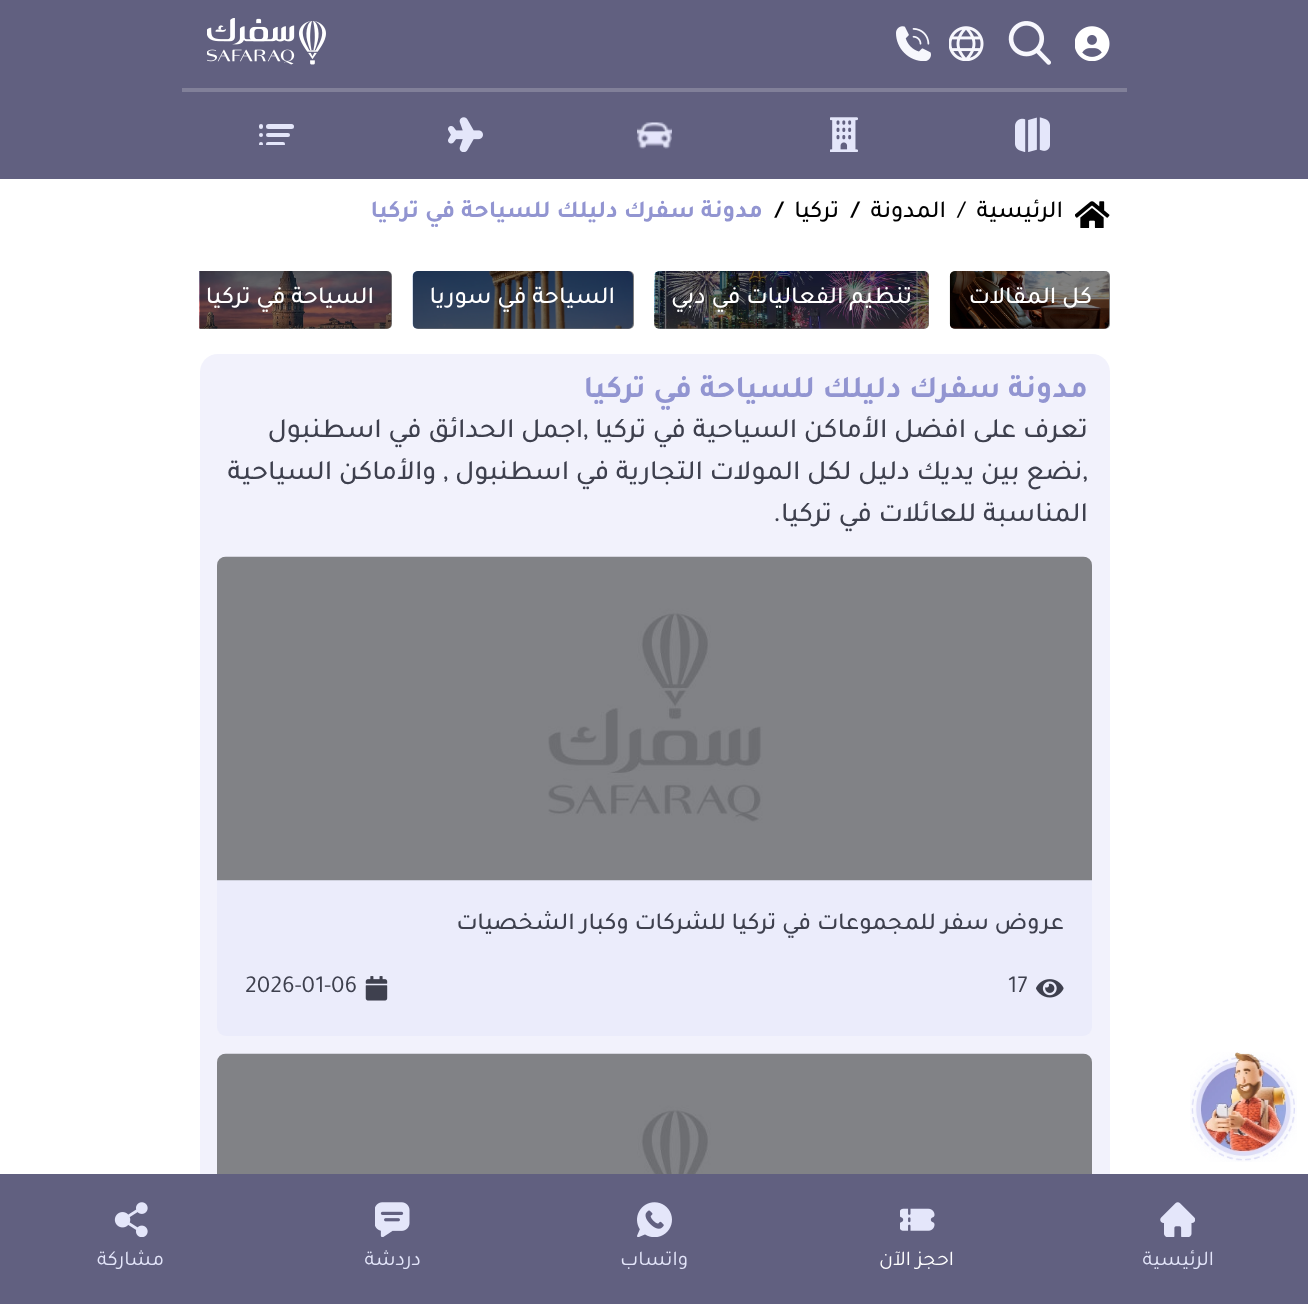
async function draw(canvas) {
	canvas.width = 1308;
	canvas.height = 1304;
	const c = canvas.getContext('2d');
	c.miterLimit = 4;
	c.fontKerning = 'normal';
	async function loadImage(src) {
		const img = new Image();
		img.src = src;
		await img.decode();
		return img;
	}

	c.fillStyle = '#fff';
	c.fillRect(0, 0, 1308, 1304);
	c.fillStyle = '#616080';
	c.fillRect(0, 0, 1308, 179);
	c.fillStyle = '#818099';
	c.fillRect(182, 88, 945, 4);
	c.drawImage(await loadImage('img1.png'), 1075, 26, 35, 35);
	c.drawImage(await loadImage('img2.png'), 1008, 21, 43, 44);
	c.drawImage(await loadImage('img3.png'), 949, 26, 35, 35);
	c.drawImage(await loadImage('img4.png'), 896, 26, 35, 35);
	c.drawImage(await loadImage('img5.png'), 207, 18, 119, 47);
	c.drawImage(await loadImage('img6.png'), 1015, 117, 35, 35);
	c.drawImage(await loadImage('img7.png'), 830, 117, 28, 35);
	c.drawImage(await loadImage('img8.png'), 637, 122, 35, 27);
	c.drawImage(await loadImage('img9.png'), 448, 117, 35, 35);
	c.fillStyle = '#e4e6fa';
	c.beginPath();
	c.roundRect(266, 124, 28, 5, 2.5);
	c.fill();
	c.beginPath();
	c.roundRect(259, 124, 4, 5, 2);
	c.fill();
	c.beginPath();
	c.roundRect(266, 133, 24, 4, 2);
	c.fill();
	c.beginPath();
	c.arc(261, 135, 2, 0, 2 * Math.PI);
	c.fill();
	c.save();
	c.beginPath();
	c.rect(259, 124, 35, 21);
	c.clip();
	c.beginPath();
	c.roundRect(266, 142, 19, 4, 2);
	c.fill();
	c.beginPath();
	c.arc(261, 144, 2, 0, 2 * Math.PI);
	c.fill();
	c.restore();
	c.drawImage(await loadImage('img10.png'), 1075, 201, 35, 27);
	c.direction = 'rtl';
	c.font = '500 24.5px Tajawal';
	c.fillStyle = '#000';
	c.fillText('الرئيسية  /', 1063, 217);
	c.fillText('المدونة', 946, 217);
	c.direction = 'ltr';
	c.font = 'bold 24.5px Tajawal';
	c.fillText('/', 851, 217);
	c.direction = 'rtl';
	c.font = '500 24.5px Tajawal';
	c.fillText('تركيا', 839, 217);
	c.direction = 'ltr';
	c.font = 'bold 24.5px Tajawal';
	c.fillText('/', 775, 217);
	c.direction = 'rtl';
	c.fillStyle = '#9295d1';
	c.fillText('مدونة سفرك دليلك للسياحة في تركيا', 763, 217);
	c.drawImage(await loadImage('img11.png'), 949, 271, 160, 58);
	c.fillStyle = '#00000080';
	c.beginPath();
	c.roundRect(950, 271, 160, 58, 5);
	c.fill();
	c.font = '500 24.5px Tajawal';
	c.fillStyle = '#fff';
	c.fillText('كل المقالات', 1092, 303);
	c.drawImage(await loadImage('img12.png'), 654, 271, 275, 58);
	c.fillStyle = '#00000080';
	c.beginPath();
	c.roundRect(655, 271, 274, 58, 5);
	c.fill();
	c.fillStyle = '#fff';
	c.fillText('تنظيم الفعاليات في دبي', 912, 303);
	c.drawImage(await loadImage('img13.png'), 412, 271, 221, 58);
	c.fillStyle = '#00000080';
	c.beginPath();
	c.roundRect(413, 271, 221, 58, 5);
	c.fill();
	c.fillStyle = '#fff';
	c.fillText('السياحة في سوريا', 615, 303);
	c.drawImage(await loadImage('img14.png'), 199, 271, 193, 58);
	c.fillStyle = '#00000080';
	c.beginPath();
	c.roundRect(200, 271, 192, 58, [0, 5, 5, 0]);
	c.fill();
	c.fillStyle = '#fff';
	c.fillText('السياحة في تركيا', 374, 303);
	c.fillStyle = '#f2f2fc';
	c.beginPath();
	c.roundRect(200, 354, 910, 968, 18);
	c.fill();
	c.font = 'bold 31.5px Tajawal';
	c.fillStyle = '#9295d1';
	c.fillText('مدونة سفرك دليلك للسياحة في تركيا', 1088, 397);
	c.font = '500 28px Tajawal';
	c.fillStyle = '#3e404e';
	for (const [text, x, y] of [
		['تعرف على افضل الأماكن السياحية في تركيا ,اجمل الحدائق في اسطنبول', 1088, 437],
		[',نضع بين يديك دليل لكل المولات التجارية في اسطنبول , والأماكن السياحية', 1088, 479],
		['المناسبة للعائلات في تركيا.', 1088, 521],
	]) {
		c.fillText(text, x, y);
	}
	c.fillStyle = '#ebecfb';
	c.beginPath();
	c.roundRect(217, 557, 875, 479, 9);
	c.fill();
	c.drawImage(await loadImage('img15.png'), 217, 556, 875, 325);
	c.font = '500 24.5px Tajawal';
	c.fillStyle = '#3e404e';
	c.fillText('عروض سفر للمجموعات في تركيا للشركات وكبار الشخصيات', 1064, 929);
	c.drawImage(await loadImage('img16.png'), 1036, 979, 28, 19);
	c.direction = 'ltr';
	c.font = '24.5px Tajawal';
	c.fillText('17', 1008, 992);
	c.drawImage(await loadImage('img17.png'), 365, 976, 23, 25);
	c.fillText('2026-01-06', 245, 992);
	c.drawImage(await loadImage('img18.png'), 217, 1053, 875, 121);
	c.drawImage(await loadImage('img19.png'), 1190, 1052, 107, 110);
	c.fillStyle = '#616080';
	c.fillRect(0, 1174, 1308, 130);
	c.drawImage(await loadImage('img20.png'), 1160, 1202, 35, 35);
	c.direction = 'rtl';
	c.font = '21px Tajawal';
	c.fillStyle = '#e4e6fa';
	c.fillText('الرئيسية', 1214, 1265);
	c.drawImage(await loadImage('img21.png'), 900, 1208, 35, 23);
	c.fillStyle = '#fff';
	c.fillText('احجز الآن', 954, 1265);
	c.drawImage(await loadImage('img22.png'), 637, 1202, 35, 35);
	c.fillStyle = '#e4e6fa';
	c.fillText('واتساب', 688, 1265);
	c.drawImage(await loadImage('img23.png'), 375, 1202, 35, 35);
	c.fillText('دردشة', 421, 1265);
	c.drawImage(await loadImage('img24.png'), 114, 1202, 34, 35);
	c.fillText('مشاركة', 164, 1265);
}

draw(document.querySelector('canvas'));
